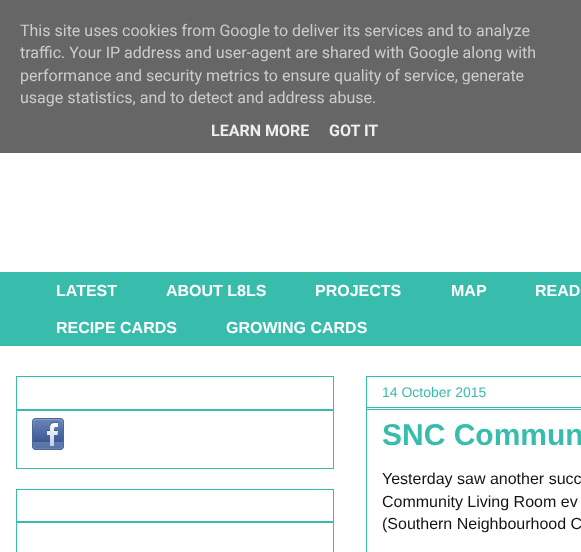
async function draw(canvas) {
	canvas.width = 581;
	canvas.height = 552;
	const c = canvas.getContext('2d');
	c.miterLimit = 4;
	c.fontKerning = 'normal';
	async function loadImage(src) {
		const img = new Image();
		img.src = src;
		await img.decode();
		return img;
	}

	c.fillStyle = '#fff';
	c.fillRect(0, 0, 581, 552);
	c.fillStyle = '#666';
	c.fillRect(0, 0, 581, 153);
	c.font = '16px Roboto';
	c.fillStyle = '#ccc';
	for (const [text, x, y] of [
		['This site uses cookies from Google to deliver its services and to analyze', 20, 36],
		['traffic. Your IP address and user-agent are shared with Google along with', 20, 58],
		['performance and security metrics to ensure quality of service, generate', 20, 81],
		['usage statistics, and to detect and address abuse.', 20, 103],
	]) {
		c.fillText(text, x, y);
	}
	c.font = 'bold 16px Roboto';
	c.fillStyle = '#eee';
	c.fillText('LEARN MORE', 211, 136);
	c.fillText('GOT IT', 329, 136);
	c.fillStyle = '#38bdad';
	c.fillRect(0, 272, 581, 74);
	c.font = 'bold 16px Liberation Sans';
	c.fillStyle = '#fff';
	for (const [text, x, y] of [
		['LATEST', 56, 296],
		['ABOUT L8LS', 166, 296],
		['PROJECTS', 315, 296],
		['MAP', 451, 296],
		['READ', 535, 296],
		['RECIPE CARDS', 56, 333],
		['GROWING CARDS', 226, 333],
	]) {
		c.fillText(text, x, y);
	}
	c.strokeStyle = '#38bdad';
	c.strokeRect(16.5, 376.5, 317, 92);
	c.fillStyle = '#38bdad';
	c.fillRect(17, 409, 316, 2);
	c.drawImage(await loadImage('img1.png'), 32, 418, 32, 32);
	c.strokeRect(16.5, 489.5, 317, 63);
	c.fillRect(17, 521, 316, 2);
	c.strokeRect(366.5, 376.5, 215, 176);
	c.fillRect(367, 407, 214, 1);
	c.font = '14px Liberation Sans';
	c.fillText('14 October 2015', 382, 397);
	c.fillRect(367, 409, 214, 1);
	c.font = 'bold 30px Liberation Sans';
	c.fillText('SNC Commun', 382, 445);
	c.font = '16px Liberation Sans';
	c.fillStyle = '#141414';
	for (const [text, x, y] of [
		['Yesterday saw another succ', 382, 484],
		['Community Living Room ev', 382, 507],
		['(Southern Neighbourhood C', 382, 529],
	]) {
		c.fillText(text, x, y);
	}
}

draw(document.querySelector('canvas'));
